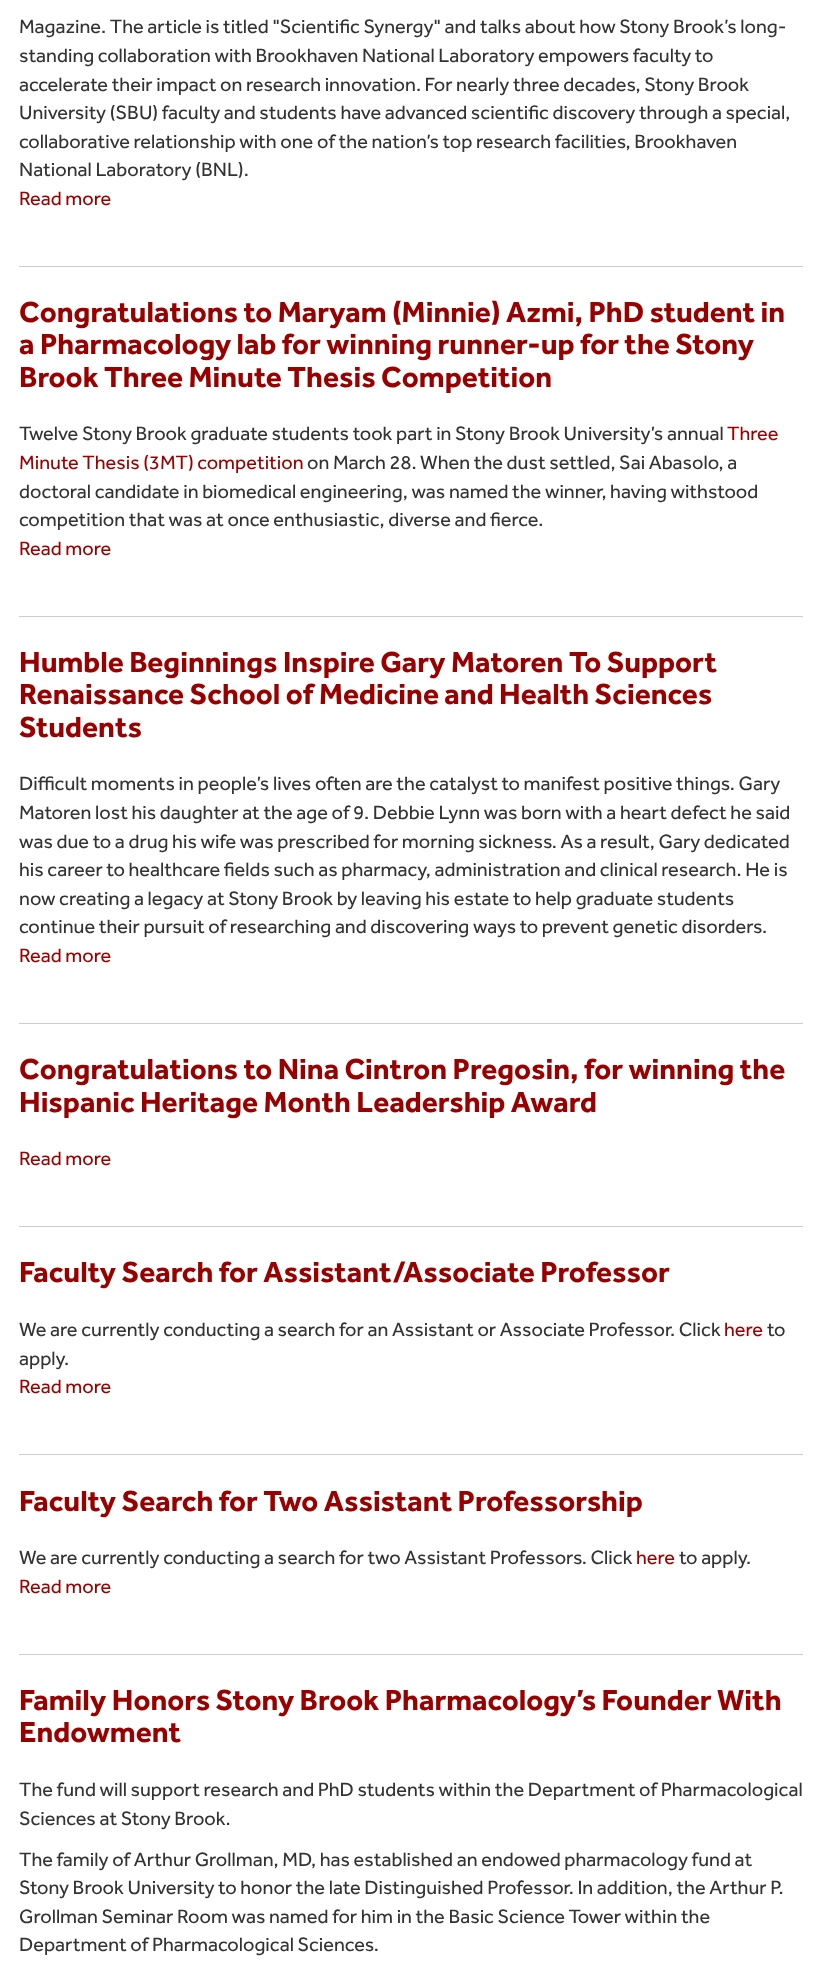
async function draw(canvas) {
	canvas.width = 821;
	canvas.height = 1966;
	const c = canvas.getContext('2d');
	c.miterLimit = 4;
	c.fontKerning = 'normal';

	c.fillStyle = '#fff';
	c.fillRect(0, 0, 821, 1966);
	c.fillStyle = '#ccc';
	c.fillRect(19, 266, 784, 1);
	c.font = '20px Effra';
	c.fillStyle = '#333';
	for (const [text, x, y] of [
		['Magazine. The article is titled "Scientific Synergy" and talks about how Stony Brook’s long-', 19, 33],
		['standing collaboration with Brookhaven National Laboratory empowers faculty to', 19, 62],
		['accelerate their impact on research innovation. For nearly three decades, Stony Brook', 19, 91],
		['University (SBU) faculty and students have advanced scientific discovery through a special,', 19, 119],
		['collaborative relationship with one of the nation’s top research facilities, Brookhaven', 19, 148],
		['National Laboratory (BNL).', 19, 176],
	]) {
		c.fillText(text, x, y);
	}
	c.fillStyle = '#900';
	c.fillText('Read more', 19, 205);
	c.fillStyle = '#ccc';
	c.fillRect(19, 616, 784, 1);
	c.font = 'bold 30px Effra';
	c.fillStyle = '#900';
	for (const [text, x, y] of [
		['Congratulations to Maryam (Minnie) Azmi, PhD student in', 19, 322],
		['a Pharmacology lab for winning runner-up for the Stony', 19, 354],
		['Brook Three Minute Thesis Competition', 19, 387],
	]) {
		c.fillText(text, x, y);
	}
	c.font = '20px Effra';
	c.fillStyle = '#333';
	c.fillText('Twelve Stony Brook graduate students took part in Stony Brook University’s annual', 19, 440);
	c.fillStyle = '#900';
	c.fillText('Three', 727, 440);
	c.fillText('Minute Thesis (3MT) competition', 19, 469);
	c.fillStyle = '#333';
	for (const [text, x, y] of [
		['on March 28. When the dust settled, Sai Abasolo, a', 307, 469],
		['doctoral candidate in biomedical engineering, was named the winner, having withstood', 19, 498],
		['competition that was at once enthusiastic, diverse and fierce.', 19, 526],
	]) {
		c.fillText(text, x, y);
	}
	c.fillStyle = '#900';
	c.fillText('Read more', 19, 555);
	c.fillStyle = '#ccc';
	c.fillRect(19, 1023, 784, 1);
	c.font = 'bold 30px Effra';
	c.fillStyle = '#900';
	for (const [text, x, y] of [
		['Humble Beginnings Inspire Gary Matoren To Support', 19, 672],
		['Renaissance School of Medicine and Health Sciences', 19, 704],
		['Students', 19, 737],
	]) {
		c.fillText(text, x, y);
	}
	c.font = '20px Effra';
	c.fillStyle = '#333';
	for (const [text, x, y] of [
		['Difficult moments in people’s lives often are the catalyst to manifest positive things. Gary', 19, 790],
		['Matoren lost his daughter at the age of 9. Debbie Lynn was born with a heart defect he said', 19, 819],
		['was due to a drug his wife was prescribed for morning sickness. As a result, Gary dedicated', 19, 848],
		['his career to healthcare fields such as pharmacy, administration and clinical research. He is', 19, 876],
		['now creating a legacy at Stony Brook by leaving his estate to help graduate students', 19, 905],
		['continue their pursuit of researching and discovering ways to prevent genetic disorders.', 19, 933],
	]) {
		c.fillText(text, x, y);
	}
	c.fillStyle = '#900';
	c.fillText('Read more', 19, 962);
	c.fillStyle = '#ccc';
	c.fillRect(19, 1226, 784, 1);
	c.font = 'bold 30px Effra';
	c.fillStyle = '#900';
	c.fillText('Congratulations to Nina Cintron Pregosin, for winning the', 19, 1079);
	c.fillText('Hispanic Heritage Month Leadership Award', 19, 1112);
	c.font = '20px Effra';
	c.fillText('Read more', 19, 1165);
	c.fillStyle = '#ccc';
	c.fillRect(19, 1454, 784, 1);
	c.font = 'bold 30px Effra';
	c.fillStyle = '#900';
	c.fillText('Faculty Search for Assistant/Associate Professor', 19, 1282);
	c.font = '20px Effra';
	c.fillStyle = '#333';
	c.fillText('We are currently conducting a search for an Assistant or Associate Professor. Click', 19, 1336);
	c.fillStyle = '#900';
	c.fillText('here', 724, 1336);
	c.fillStyle = '#333';
	c.fillText('to', 767, 1336);
	c.fillText('apply.', 19, 1365);
	c.fillStyle = '#900';
	c.fillText('Read more', 19, 1393);
	c.fillStyle = '#ccc';
	c.fillRect(19, 1654, 784, 1);
	c.font = 'bold 30px Effra';
	c.fillStyle = '#900';
	c.fillText('Faculty Search for Two Assistant Professorship', 19, 1511);
	c.font = '20px Effra';
	c.fillStyle = '#333';
	c.fillText('We are currently conducting a search for two Assistant Professors. Click', 19, 1564);
	c.fillStyle = '#900';
	c.fillText('here', 636, 1564);
	c.fillStyle = '#333';
	c.fillText('to apply.', 679, 1564);
	c.fillStyle = '#900';
	c.fillText('Read more', 19, 1593);
	c.font = 'bold 30px Effra';
	c.fillText('Family Honors Stony Brook Pharmacology’s Founder With', 19, 1710);
	c.fillText('Endowment', 19, 1742);
	c.font = '20px Effra';
	c.fillStyle = '#333';
	for (const [text, x, y] of [
		['The fund will support research and PhD students within the Department of Pharmacological', 19, 1796],
		['Sciences at Stony Brook.', 19, 1825],
		['The family of Arthur Grollman, MD, has established an endowed pharmacology fund at', 19, 1866],
		['Stony Brook University to honor the late Distinguished Professor. In addition, the Arthur P.', 19, 1894],
		['Grollman Seminar Room was named for him in the Basic Science Tower within the', 19, 1923],
		['Department of Pharmacological Sciences.', 19, 1951],
	]) {
		c.fillText(text, x, y);
	}
}

draw(document.querySelector('canvas'));
